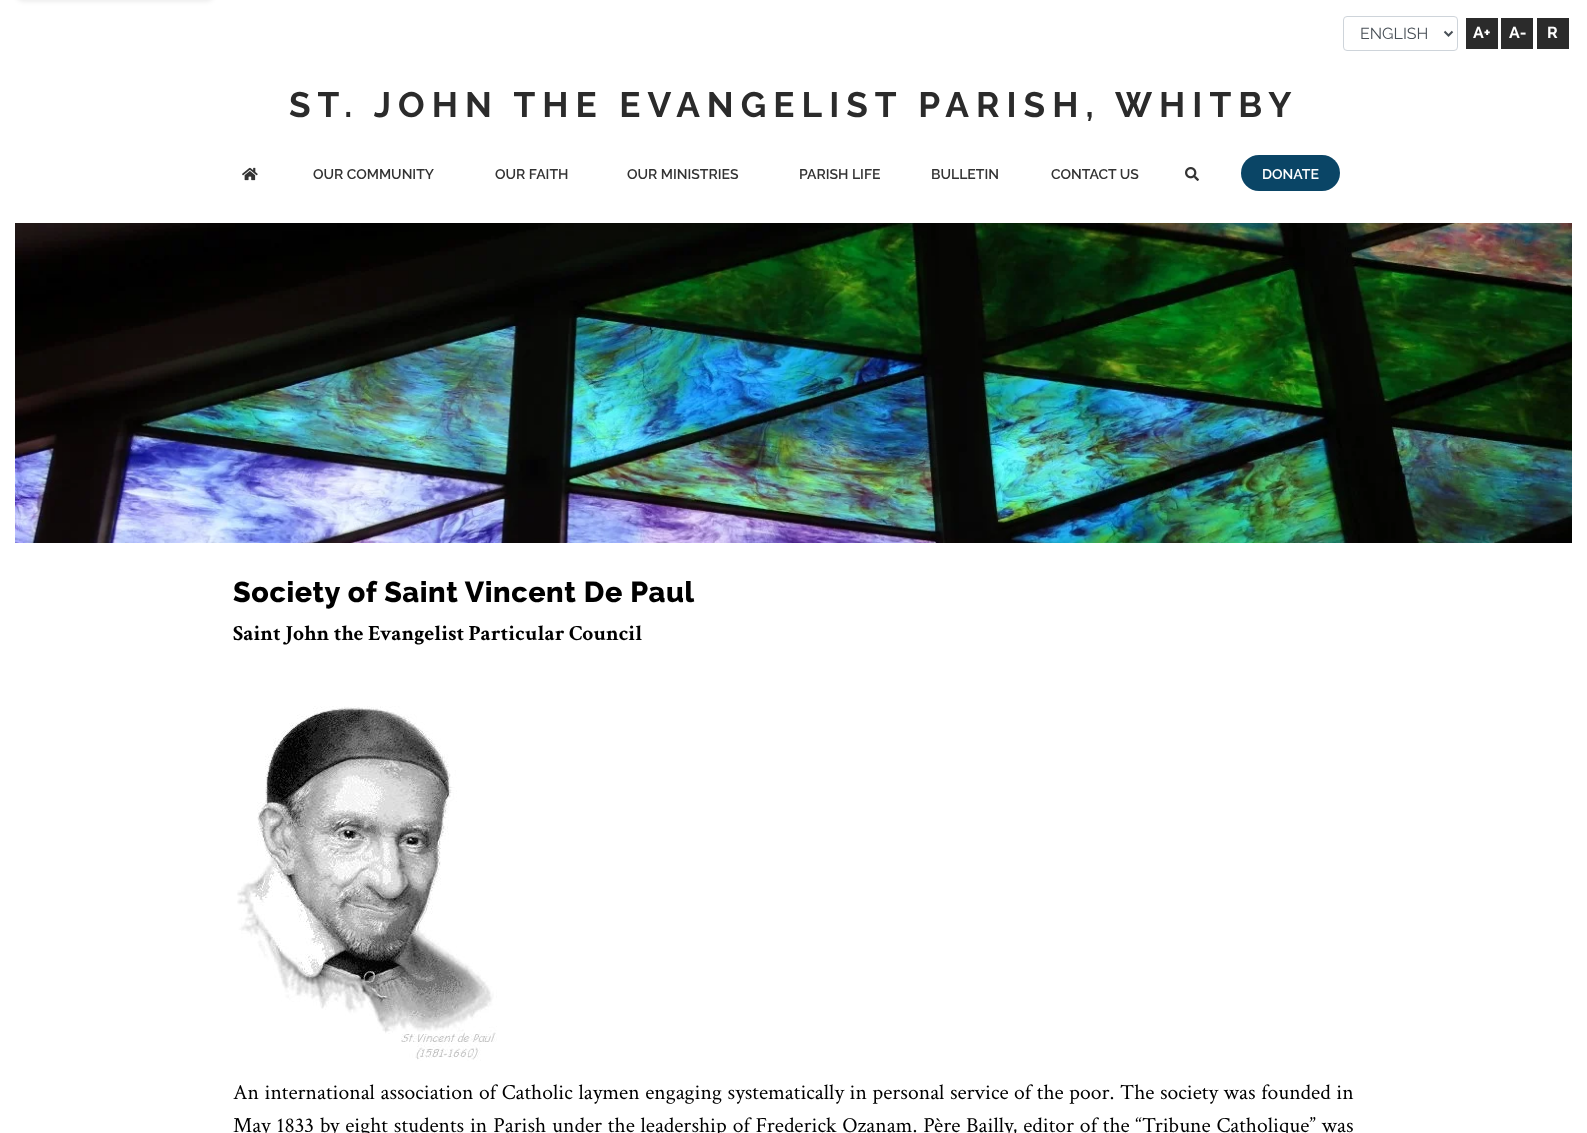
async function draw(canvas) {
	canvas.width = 1587;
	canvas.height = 1133;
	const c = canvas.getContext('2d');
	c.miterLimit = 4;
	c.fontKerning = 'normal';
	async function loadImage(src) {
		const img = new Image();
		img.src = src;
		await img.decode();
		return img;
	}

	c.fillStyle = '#fff';
	c.fillRect(0, 0, 1587, 1133);
	c.fillStyle = '#00000012';
	c.filter = 'blur(2px)';
	c.beginPath();
	c.roundRect(15, -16, 200, 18, 10);
	c.fill();
	c.filter = 'none';
	c.beginPath();
	c.roundRect(1343.5, 16.5, 114, 34, 3.5);
	c.strokeStyle = '#ced4da';
	c.stroke();
	c.beginPath();
	c.moveTo(1444.5, 31.5);
	c.lineTo(1448.5, 35.5);
	c.lineTo(1452.5, 31.5);
	c.strokeStyle = '#495057';
	c.lineWidth = 2;
	c.stroke();
	c.font = '16px Raleway';
	c.fillStyle = '#495057';
	c.fillText('ENGLISH', 1360, 39);
	c.fillStyle = '#2b2b2b';
	c.fillRect(1466, 18, 32, 31);
	c.font = 'bold 16px Raleway';
	c.fillStyle = '#fff';
	c.fillText('A+', 1473, 38);
	c.fillStyle = '#2b2b2b';
	c.fillRect(1501, 18, 32, 31);
	c.fillStyle = '#fff';
	c.fillText('A-', 1509, 38);
	c.fillStyle = '#2b2b2b';
	c.fillRect(1537, 18, 32, 31);
	c.fillStyle = '#fff';
	c.fillText('R', 1547, 38);
	c.letterSpacing = '7.05px';
	c.font = 'bold 35.2px Raleway';
	c.fillStyle = '#2b2b2b';
	c.fillText('ST. JOHN THE EVANGELIST PARISH, WHITBY', 289, 117);
	c.drawImage(await loadImage('img1.png'), 242, 167, 16, 14);
	c.letterSpacing = '0px';
	c.font = '600 14px Raleway';
	c.fillStyle = '#333';
	for (const [text, x, y] of [
		['OUR COMMUNITY', 313, 179],
		['OUR FAITH', 495, 179],
		['OUR MINISTRIES', 627, 179],
		['PARISH LIFE', 799, 179],
		['BULLETIN', 931, 179],
		['CONTACT US', 1051, 179],
	]) {
		c.fillText(text, x, y);
	}
	c.drawImage(await loadImage('img2.png'), 1185, 167, 14, 14);
	c.fillStyle = '#0a4566';
	c.beginPath();
	c.roundRect(1241, 155, 99, 36, 18);
	c.fill();
	c.fillStyle = '#fff';
	c.fillText('DONATE', 1262, 179);
	c.drawImage(await loadImage('img3.png'), 15, 223, 1557, 320);
	c.letterSpacing = '0.6px';
	c.font = '800 28.75px Raleway';
	c.fillStyle = '#000';
	c.fillText('Society of Saint Vincent De Paul', 233, 602);
	c.letterSpacing = '0px';
	c.font = 'bold 21.6px Crimson Text';
	c.fillText('Saint John the Evangelist Particular Council', 233, 640);
	c.drawImage(await loadImage('img4.png'), 237, 706, 260, 355);
	c.wordSpacing = '0.75px';
	c.font = '21.6px Crimson Text';
	c.fillText('An international association of Catholic laymen engaging systematically in personal service of the poor. The society was founded in', 233, 1099);
	c.wordSpacing = '1px';
	c.fillText('May 1833 by eight students in Parish under the leadership of Frederick Ozanam. Père Bailly, editor of the “Tribune Catholique” was', 233, 1132);
}

draw(document.querySelector('canvas'));
